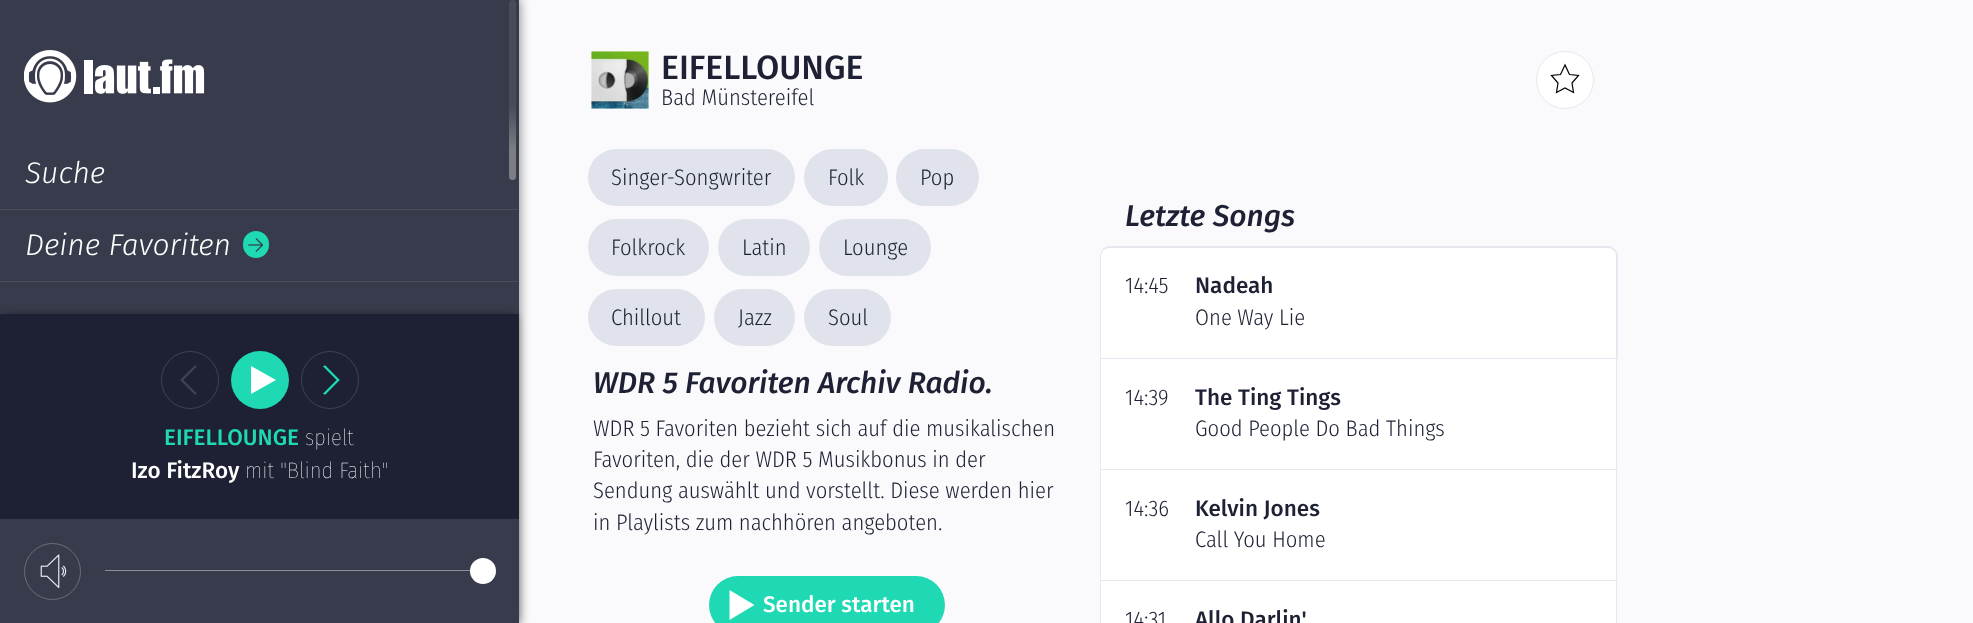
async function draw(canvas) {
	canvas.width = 1973;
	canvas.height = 623;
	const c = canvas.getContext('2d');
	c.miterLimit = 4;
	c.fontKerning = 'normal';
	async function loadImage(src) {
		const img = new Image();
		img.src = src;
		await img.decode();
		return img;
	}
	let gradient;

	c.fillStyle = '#fafafc';
	c.fillRect(0, 0, 1973, 623);
	c.fillStyle = '#00000080';
	c.filter = 'blur(6px)';
	c.beginPath();
	c.rect(-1, -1, 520, 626);
	c.fill();
	c.filter = 'none';
	c.fillStyle = '#373b4b';
	c.fillRect(0, 0, 519, 314);
	c.fillStyle = '#7c7e84';
	c.beginPath();
	c.roundRect(509, 0, 7, 180, 3.5);
	c.fill();
	gradient = c.createLinearGradient(259, 150, 259, 0);
	gradient.addColorStop(0, '#373b4b00');
	gradient.addColorStop(0.29, '#373b4bbf');
	c.fillStyle = gradient;
	c.fillRect(509, 0, 7, 148);
	c.drawImage(await loadImage('img1.png'), 24, 50, 181, 53);
	c.fillStyle = '#4b4f5d';
	c.fillRect(0, 209, 518, 1);
	c.font = 'italic 300 30px Fira Sans';
	c.fillStyle = '#fff';
	c.fillText('Suche', 25, 183);
	c.fillStyle = '#4b4f5d';
	c.fillRect(0, 281, 518, 1);
	c.fillStyle = '#fff';
	c.fillText('Deine Favoriten', 25, 255);
	c.fillStyle = '#1ed9b4';
	c.beginPath();
	c.roundRect(243, 231, 26, 27, 13);
	c.fill();
	c.drawImage(await loadImage('img2.png'), 248, 238, 15, 14);
	c.fillStyle = '#00000080';
	c.filter = 'blur(5px)';
	c.beginPath();
	c.rect(3, 316, 513, 305);
	c.fill();
	c.filter = 'none';
	c.fillStyle = '#1d2133';
	c.fillRect(0, 314, 519, 205);
	c.beginPath();
	c.arc(190, 380, 28.5, 0, 2 * Math.PI);
	c.strokeStyle = '#3f4252';
	c.stroke();
	c.beginPath();
	c.moveTo(182.5, 380);
	c.lineTo(196, 393.5);
	c.lineTo(195, 394);
	c.lineTo(181, 380);
	c.lineTo(195, 366);
	c.lineTo(196, 366.5);
	c.closePath();
	c.lineWidth = 1.2;
	c.stroke();
	c.fillStyle = '#1ed9b4';
	c.beginPath();
	c.arc(260, 380, 29, 0, 2 * Math.PI);
	c.fill();
	c.fillStyle = '#fff';
	c.beginPath();
	c.moveTo(251, 394);
	c.lineTo(251, 366);
	c.lineTo(276, 380);
	c.closePath();
	c.fill();
	c.beginPath();
	c.arc(330, 380, 28.5, 0, 2 * Math.PI);
	c.lineWidth = 1;
	c.stroke();
	c.beginPath();
	c.moveTo(337.5, 380);
	c.lineTo(324, 366.5);
	c.lineTo(325, 366);
	c.lineTo(339, 380);
	c.lineTo(325, 394);
	c.lineTo(324, 393.5);
	c.closePath();
	c.strokeStyle = '#1ed9b4';
	c.lineWidth = 1.2;
	c.stroke();
	c.font = '500 22.5px Fira Sans';
	c.fillStyle = '#1ed9b4';
	c.fillText('EIFELLOUNGE', 164, 445);
	c.font = '200 22.5px Fira Sans Condensed';
	c.fillStyle = '#fff';
	c.fillText('spielt', 305, 445);
	c.font = '500 22.5px Fira Sans';
	c.fillText('Izo FitzRoy', 131, 478);
	c.font = '200 22.5px Fira Sans Condensed';
	c.fillText('mit "Blind Faith"', 245, 478);
	c.fillStyle = '#373b4b';
	c.fillRect(0, 519, 519, 104);
	c.beginPath();
	c.arc(52.5, 571.5, 28, 0, 2 * Math.PI);
	c.strokeStyle = '#6b6e7a';
	c.lineWidth = 1;
	c.stroke();
	c.drawImage(await loadImage('img3.png'), 40, 554, 27, 35);
	c.fillStyle = '#8b8d97';
	c.fillRect(105, 570, 366, 1);
	c.fillStyle = '#fff';
	c.beginPath();
	c.arc(483, 571, 13, 0, 2 * Math.PI);
	c.fill();
	c.drawImage(await loadImage('img4.png'), 591, 51, 58, 58);
	c.font = '500 33.75px Fira Sans';
	c.fillStyle = '#1d2133';
	c.fillText('EIFELLOUNGE', 661, 79);
	c.font = '300 22.5px Fira Sans Condensed';
	c.fillText('Bad Münstereifel', 661, 105);
	c.fillStyle = '#fff';
	c.beginPath();
	c.arc(1565, 80, 28.5, 0, 2 * Math.PI);
	c.fill();
	c.strokeStyle = '#e5e8f1';
	c.stroke();
	c.beginPath();
	c.moveTo(1565, 65);
	c.lineTo(1560.5, 74.5);
	c.lineTo(1551.5, 75.5);
	c.lineTo(1558, 83);
	c.lineTo(1556.5, 92.5);
	c.lineTo(1565, 88);
	c.lineTo(1573.5, 92.5);
	c.lineTo(1572, 83);
	c.lineTo(1578.5, 75.5);
	c.lineTo(1569.5, 74.5);
	c.closePath();
	c.strokeStyle = '#000';
	c.lineWidth = 1.2;
	c.stroke();
	c.fillStyle = '#e1e3ec';
	c.beginPath();
	c.roundRect(588, 149, 207, 57, 28.5);
	c.fill();
	c.fillStyle = '#1d2133';
	c.fillText('Singer-Songwriter', 611, 185);
	c.fillStyle = '#e1e3ec';
	c.beginPath();
	c.roundRect(804, 149, 84, 57, 28.5);
	c.fill();
	c.fillStyle = '#1d2133';
	c.fillText('Folk', 828, 185);
	c.fillStyle = '#e1e3ec';
	c.beginPath();
	c.roundRect(896, 149, 83, 57, 28.5);
	c.fill();
	c.fillStyle = '#1d2133';
	c.fillText('Pop', 920, 185);
	c.fillStyle = '#e1e3ec';
	c.beginPath();
	c.roundRect(588, 219, 121, 57, 28.5);
	c.fill();
	c.fillStyle = '#1d2133';
	c.fillText('Folkrock', 611, 255);
	c.fillStyle = '#e1e3ec';
	c.beginPath();
	c.roundRect(718, 219, 92, 57, 28.5);
	c.fill();
	c.fillStyle = '#1d2133';
	c.fillText('Latin', 742, 255);
	c.fillStyle = '#e1e3ec';
	c.beginPath();
	c.roundRect(819, 219, 112, 57, 28.5);
	c.fill();
	c.fillStyle = '#1d2133';
	c.fillText('Lounge', 843, 255);
	c.fillStyle = '#e1e3ec';
	c.beginPath();
	c.roundRect(588, 289, 117, 57, 28.5);
	c.fill();
	c.fillStyle = '#1d2133';
	c.fillText('Chillout', 611, 325);
	c.fillStyle = '#e1e3ec';
	c.beginPath();
	c.roundRect(714, 289, 81, 57, 28.5);
	c.fill();
	c.fillStyle = '#1d2133';
	c.fillText('Jazz', 738, 325);
	c.fillStyle = '#e1e3ec';
	c.beginPath();
	c.roundRect(804, 289, 87, 57, 28.5);
	c.fill();
	c.fillStyle = '#1d2133';
	c.fillText('Soul', 828, 325);
	c.font = 'italic 500 30px Fira Sans';
	c.fillText('WDR 5 Favoriten Archiv Radio.', 593, 393);
	c.font = '300 22.5px Fira Sans Condensed';
	for (const [text, x, y] of [
		['WDR 5 Favoriten bezieht sich auf die musikalischen', 593, 436],
		['Favoriten, die der WDR 5 Musikbonus in der', 593, 467],
		['Sendung auswählt und vorstellt. Diese werden hier', 593, 498],
		['in Playlists zum nachhören angeboten.', 593, 530],
	]) {
		c.fillText(text, x, y);
	}
	c.fillStyle = '#1ed9b4';
	c.beginPath();
	c.roundRect(709, 576, 236, 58, 29);
	c.fill();
	c.fillStyle = '#fff';
	c.beginPath();
	c.moveTo(729.5, 620);
	c.lineTo(729.5, 590);
	c.lineTo(754.5, 605);
	c.closePath();
	c.fill();
	c.font = '500 22.5px Fira Sans';
	c.fillText('Sender starten', 763, 612);
	c.font = 'italic 500 30px Fira Sans';
	c.fillStyle = '#1d2133';
	c.fillText('Letzte Songs', 1125, 226);
	c.fillStyle = '#fff';
	c.beginPath();
	c.roundRect(1101, 248, 515, 110, [9, 9, 0, 0]);
	c.fill();
	c.fillStyle = '#e5e8f1';
	c.beginPath();
	c.moveTo(1110, 246);
	c.lineTo(1608, 246);
	c.bezierCurveTo(1613, 246, 1618, 251, 1618, 256);
	c.lineTo(1618, 358);
	c.lineTo(1100, 358);
	c.lineTo(1100, 256);
	c.bezierCurveTo(1100, 251, 1104, 246, 1110, 246);
	c.closePath();
	c.moveTo(1110, 248);
	c.lineTo(1608, 248);
	c.bezierCurveTo(1612, 248, 1616, 251, 1616, 256);
	c.lineTo(1616, 358);
	c.lineTo(1101, 358);
	c.lineTo(1101, 256);
	c.bezierCurveTo(1101, 251, 1105, 248, 1110, 248);
	c.closePath();
	c.fill('evenodd');
	c.font = '300 22.5px Fira Sans Condensed';
	c.fillStyle = '#1d2133';
	c.fillText('14:45', 1125, 293);
	c.font = '500 22.5px Fira Sans';
	c.fillText('Nadeah', 1195, 293);
	c.font = '300 22.5px Fira Sans Condensed';
	c.fillText('One Way Lie', 1195, 325);
	for (const [x, y, w, h, color] of [
		[1101, 359, 515, 110, '#fff'],
		[1100, 358, 518, 1, '#e5e8f1'],
		[1616, 358, 1, 111, '#e5e8f1'],
		[1100, 358, 1, 111, '#e5e8f1'],
	]) {
		c.fillStyle = color;
		c.fillRect(x, y, w, h);
	}
	c.fillStyle = '#1d2133';
	c.fillText('14:39', 1125, 405);
	c.font = '500 22.5px Fira Sans';
	c.fillText('The Ting Tings', 1195, 405);
	c.font = '300 22.5px Fira Sans Condensed';
	c.fillText('Good People Do Bad Things', 1195, 436);
	for (const [x, y, w, h, color] of [
		[1101, 470, 515, 110, '#fff'],
		[1100, 469, 518, 1, '#e5e8f1'],
		[1616, 469, 1, 111, '#e5e8f1'],
		[1100, 469, 1, 111, '#e5e8f1'],
	]) {
		c.fillStyle = color;
		c.fillRect(x, y, w, h);
	}
	c.fillStyle = '#1d2133';
	c.fillText('14:36', 1125, 516);
	c.font = '500 22.5px Fira Sans';
	c.fillText('Kelvin Jones', 1195, 516);
	c.font = '300 22.5px Fira Sans Condensed';
	c.fillText('Call You Home', 1195, 547);
	for (const [x, y, w, h, color] of [
		[1101, 581, 515, 42, '#fff'],
		[1100, 580, 518, 1, '#e5e8f1'],
		[1616, 580, 1, 43, '#e5e8f1'],
		[1100, 580, 1, 43, '#e5e8f1'],
	]) {
		c.fillStyle = color;
		c.fillRect(x, y, w, h);
	}
	c.fillStyle = '#1d2133';
	c.fillText('14:31', 1125, 627);
	c.font = '500 22.5px Fira Sans';
	c.fillText('Allo Darlin\'', 1195, 627);
}

draw(document.querySelector('canvas'));
